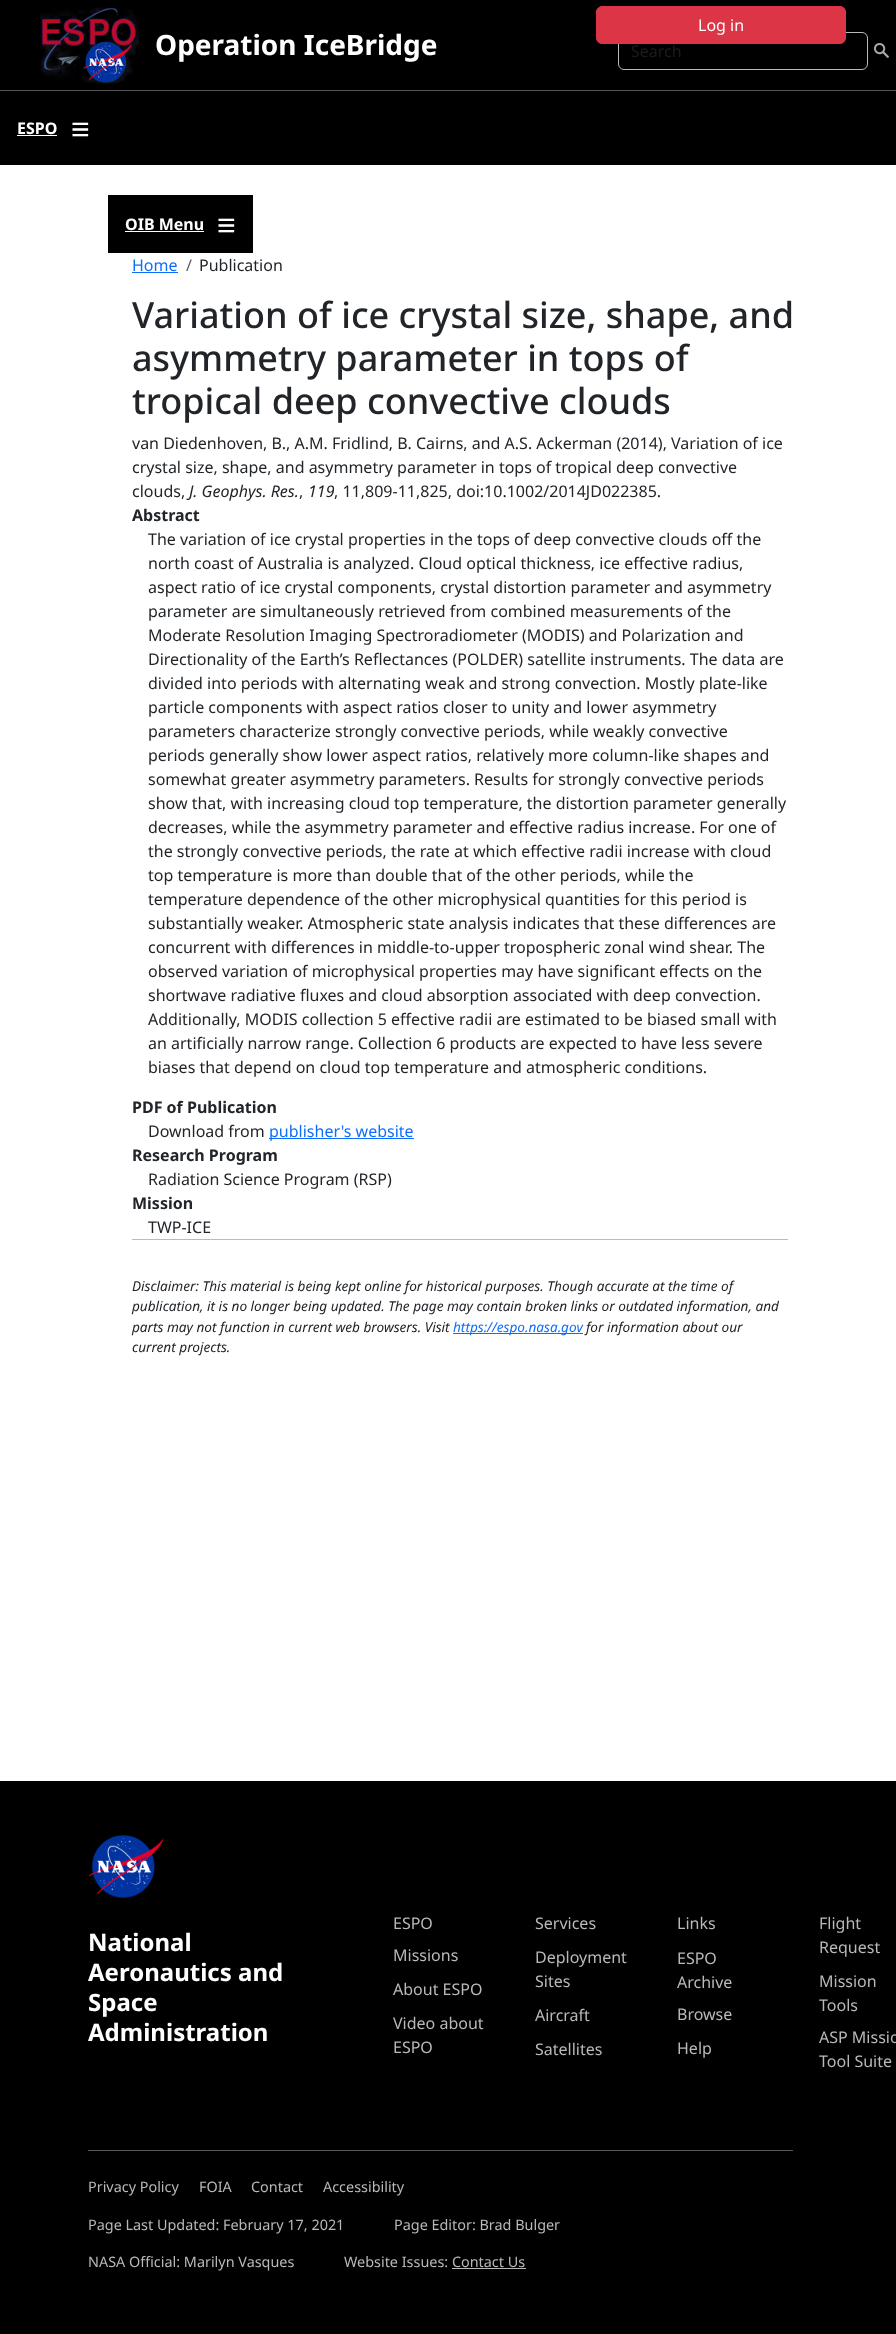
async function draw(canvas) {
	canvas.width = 896;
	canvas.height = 2334;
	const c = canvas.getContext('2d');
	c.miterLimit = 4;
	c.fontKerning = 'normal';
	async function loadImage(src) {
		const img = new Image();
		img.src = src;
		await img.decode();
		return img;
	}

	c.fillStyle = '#fff';
	c.fillRect(0, 0, 896, 2334);
	c.fillStyle = '#000';
	c.fillRect(0, 0, 896, 90);
	c.beginPath();
	c.roundRect(618.5, 32.5, 249, 37, 5.5);
	c.strokeStyle = '#bbb';
	c.stroke();
	c.fillStyle = '#dc3545';
	c.beginPath();
	c.roundRect(596.5, 6.5, 249, 37, 5.5);
	c.fill();
	c.strokeStyle = '#dc3545';
	c.stroke();
	c.font = '16px Noto Sans';
	c.fillStyle = '#fff';
	c.fillText('Log in', 698, 31);
	c.drawImage(await loadImage('img1.png'), 40, 7, 99, 77);
	c.font = 'bold 28px Noto Sans';
	c.fillText('Operation IceBridge', 155, 55);
	c.font = '16px Noto Sans';
	c.fillStyle = '#191c1f';
	c.fillText('Search', 631, 57);
	c.drawImage(await loadImage('img2.png'), 874, 43, 15, 15);
	c.fillStyle = '#000';
	c.fillRect(0, 91, 896, 74);
	c.fillStyle = '#555';
	c.fillRect(0, 90, 896, 1);
	c.font = 'bold 16px Noto Sans';
	c.fillStyle = '#fff';
	c.fillText('ESPO', 17, 134);
	c.fillRect(17, 135, 40, 1);
	c.font = 'bold 32px Liberation Sans';
	c.fillText('≡', 71, 140);
	c.fillStyle = '#000';
	c.fillRect(108, 195, 145, 58);
	c.font = 'bold 16px Noto Sans';
	c.fillStyle = '#fff';
	c.fillText('OIB Menu', 125, 230);
	c.fillRect(125, 231, 79, 1);
	c.font = 'bold 32px Liberation Sans';
	c.fillText('≡', 217, 236);
	c.font = '16px Noto Sans';
	c.fillStyle = '#0d6efd';
	c.fillText('Home', 132, 271);
	c.fillRect(132, 272, 46, 1);
	c.fillStyle = '#595c5f';
	c.fillText('/', 186, 271);
	c.fillStyle = '#212529';
	c.fillText('Publication', 199, 271);
	c.font = '500 36px Noto Sans';
	for (const [text, x, y] of [
		['Variation of ice crystal size, shape, and', 132, 328],
		['asymmetry parameter in tops of', 132, 371],
		['tropical deep convective clouds', 132, 414],
	]) {
		c.fillText(text, x, y);
	}
	c.font = '16px Noto Sans';
	for (const [text, x, y] of [
		['van Diedenhoven, B., A.M. Fridlind, B. Cairns, and A.S. Ackerman (2014), Variation of ice', 132, 449],
		['crystal size, shape, and asymmetry parameter in tops of tropical deep convective', 132, 473],
		['clouds,', 132, 497],
	]) {
		c.fillText(text, x, y);
	}
	c.font = 'italic 16px Noto Sans';
	c.fillText('J. Geophys. Res.', 189, 497);
	c.font = '16px Noto Sans';
	c.fillText(',', 299, 497);
	c.font = 'italic 16px Noto Sans';
	c.fillText('119', 308, 497);
	c.font = '16px Noto Sans';
	c.fillText(', 11,809-11,825, doi:10.1002/2014JD022385.', 334, 497);
	c.font = 'bold 16px Noto Sans';
	c.fillText('Abstract', 132, 521);
	c.font = '16px Noto Sans';
	for (const [text, x, y] of [
		['The variation of ice crystal properties in the tops of deep convective clouds off the', 148, 545],
		['north coast of Australia is analyzed. Cloud optical thickness, ice effective radius,', 148, 569],
		['aspect ratio of ice crystal components, crystal distortion parameter and asymmetry', 148, 593],
		['parameter are simultaneously retrieved from combined measurements of the', 148, 617],
		['Moderate Resolution Imaging Spectroradiometer (MODIS) and Polarization and', 148, 641],
		['Directionality of the Earth’s Reflectances (POLDER) satellite instruments. The data are', 148, 665],
		['divided into periods with alternating weak and strong convection. Mostly plate-like', 148, 689],
		['particle components with aspect ratios closer to unity and lower asymmetry', 148, 713],
		['parameters characterize strongly convective periods, while weakly convective', 148, 737],
		['periods generally show lower aspect ratios, relatively more column-like shapes and', 148, 761],
		['somewhat greater asymmetry parameters. Results for strongly convective periods', 148, 785],
		['show that, with increasing cloud top temperature, the distortion parameter generally', 148, 809],
		['decreases, while the asymmetry parameter and effective radius increase. For one of', 148, 833],
		['the strongly convective periods, the rate at which effective radii increase with cloud', 148, 857],
		['top temperature is more than double that of the other periods, while the', 148, 881],
		['temperature dependence of the other microphysical quantities for this period is', 148, 905],
		['substantially weaker. Atmospheric state analysis indicates that these differences are', 148, 929],
		['concurrent with differences in middle-to-upper tropospheric zonal wind shear. The', 148, 953],
		['observed variation of microphysical properties may have significant effects on the', 148, 977],
		['shortwave radiative fluxes and cloud absorption associated with deep convection.', 148, 1001],
		['Additionally, MODIS collection 5 effective radii are estimated to be biased small with', 148, 1025],
		['an artificially narrow range. Collection 6 products are expected to have less severe', 148, 1049],
		['biases that depend on cloud top temperature and atmospheric conditions.', 148, 1073],
	]) {
		c.fillText(text, x, y);
	}
	c.font = 'bold 16px Noto Sans';
	c.fillText('PDF of Publication', 132, 1113);
	c.font = '16px Noto Sans';
	c.fillText('Download from', 148, 1137);
	c.fillStyle = '#0d6efd';
	c.fillRect(269, 1138, 145, 1);
	c.fillText('publisher\'s website', 269, 1137);
	c.font = 'bold 16px Noto Sans';
	c.fillStyle = '#212529';
	c.fillText('Research Program', 132, 1161);
	c.font = '16px Noto Sans';
	c.fillText('Radiation Science Program (RSP)', 148, 1185);
	c.font = 'bold 16px Noto Sans';
	c.fillText('Mission', 132, 1209);
	c.font = '16px Noto Sans';
	c.fillText('TWP-ICE', 148, 1233);
	c.fillStyle = '#bbb';
	c.fillRect(132, 1239, 656, 1);
	c.font = 'italic 13.6px Noto Sans';
	c.fillStyle = '#212529';
	for (const [text, x, y] of [
		['Disclaimer: This material is being kept online for historical purposes. Though accurate at the time of', 132, 1291],
		['publication, it is no longer being updated. The page may contain broken links or outdated information, and', 132, 1311],
		['parts may not function in current web browsers. Visit', 132, 1332],
	]) {
		c.fillText(text, x, y);
	}
	c.fillStyle = '#0d6efd';
	c.fillRect(453, 1333, 130, 1);
	c.fillText('https://espo.nasa.gov', 453, 1332);
	c.fillStyle = '#212529';
	c.fillText('for information about our', 586, 1332);
	c.fillText('current projects.', 132, 1352);
	c.fillStyle = '#000';
	c.fillRect(0, 1781, 896, 553);
	c.drawImage(await loadImage('img3.png'), 88, 1835, 76, 63);
	c.font = 'bold 24px Noto Sans';
	c.fillStyle = '#fff';
	for (const [text, x, y] of [
		['National', 88, 1951],
		['Aeronautics and', 88, 1981],
		['Space', 88, 2011],
		['Administration', 88, 2041],
	]) {
		c.fillText(text, x, y);
	}
	c.font = '16px Noto Sans';
	c.fillStyle = '#b9b9bb';
	for (const [text, x, y] of [
		['Services', 535, 1929],
		['Links', 677, 1929],
		['Missions', 393, 1961],
		['Deployment', 535, 1963],
		['Sites', 535, 1987],
		['About ESPO', 393, 1995],
		['Video about', 393, 2029],
		['ESPO', 393, 2053],
		['Aircraft', 535, 2021],
		['Satellites', 535, 2055],
		['ESPO', 393, 1929],
		['Flight', 819, 1929],
		['Request', 819, 1953],
		['ESPO', 677, 1964],
		['Archive', 677, 1988],
		['Browse', 677, 2020],
		['Help', 677, 2054],
		['Mission', 819, 1987],
		['Tools', 819, 2011],
		['ASP Missio', 819, 2043],
		['Tool Suite', 819, 2067],
	]) {
		c.fillText(text, x, y);
	}
	c.fillStyle = '#58585b';
	c.fillRect(88, 2150, 705, 1);
	c.font = '14.4px Noto Sans';
	c.fillStyle = '#b9b9bb';
	for (const [text, x, y] of [
		['Privacy Policy', 88, 2192],
		['FOIA', 199, 2192],
		['Contact', 251, 2192],
		['Accessibility', 323, 2192],
		['Page Last Updated: February 17, 2021', 88, 2230],
		['Page Editor: Brad Bulger', 394, 2230],
		['NASA Official: Marilyn Vasques', 88, 2267],
		['Website Issues: Contact Us', 344, 2267],
	]) {
		c.fillText(text, x, y);
	}
	c.fillRect(452, 2268, 74, 1);
}

draw(document.querySelector('canvas'));
